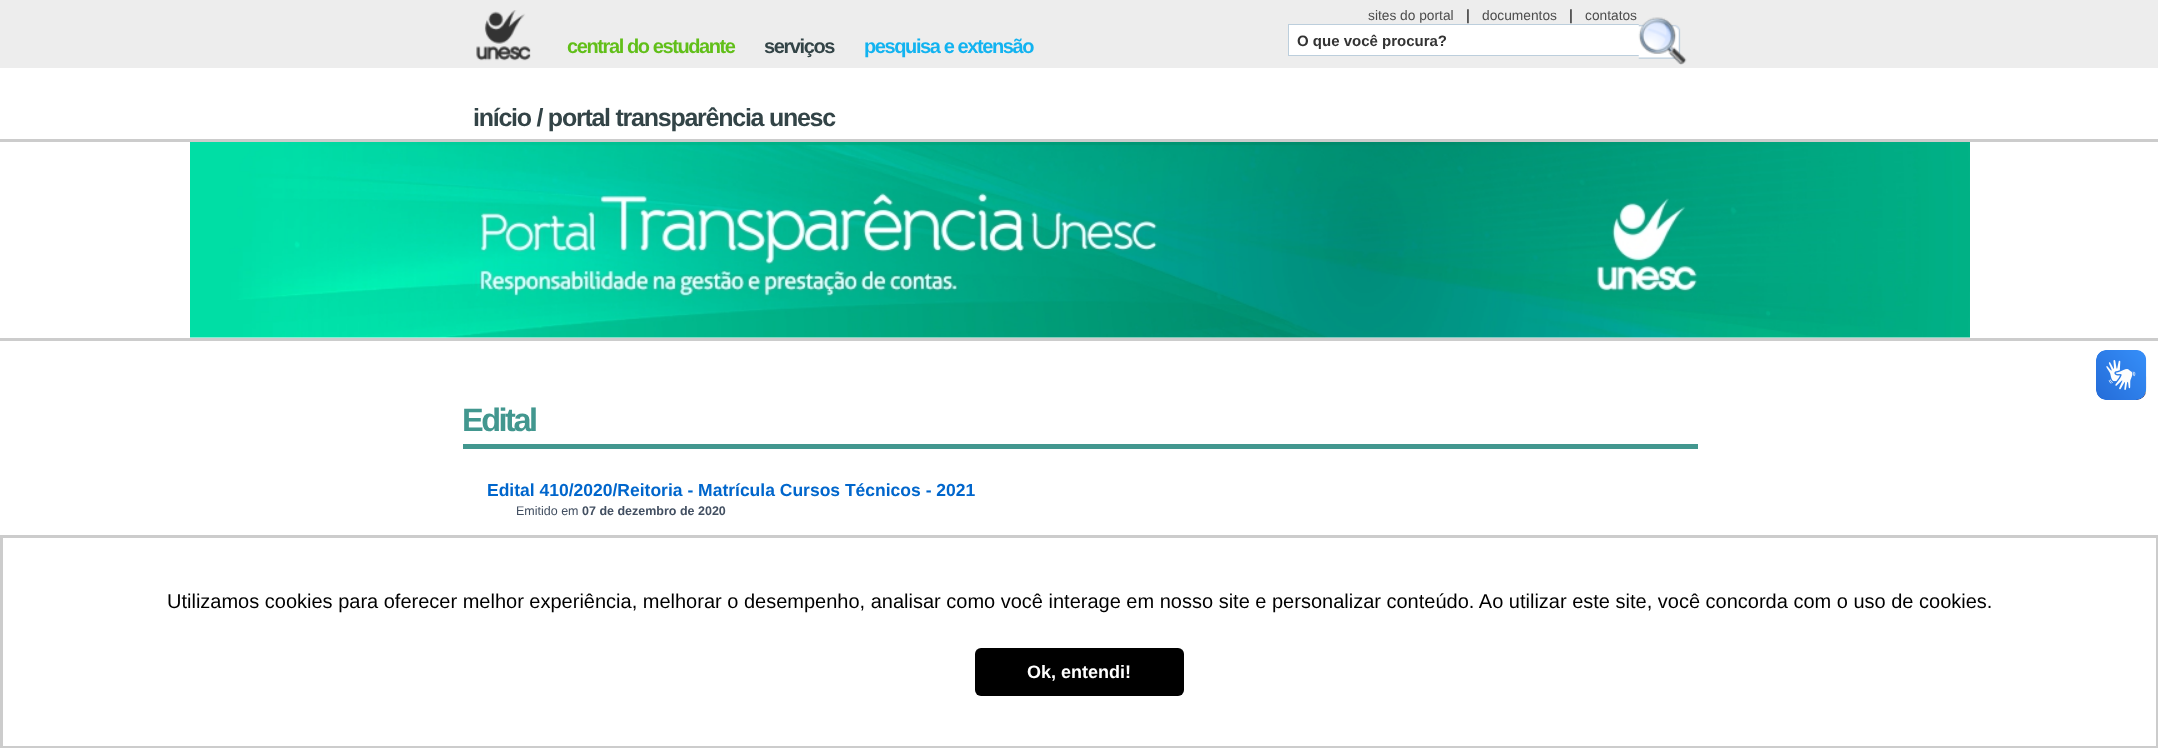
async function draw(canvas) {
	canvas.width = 2158;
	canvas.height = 748;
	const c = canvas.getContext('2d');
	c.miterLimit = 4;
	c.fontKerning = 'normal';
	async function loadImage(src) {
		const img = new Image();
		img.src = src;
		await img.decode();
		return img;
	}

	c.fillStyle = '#fff';
	c.fillRect(0, 0, 2158, 748);
	c.fillStyle = '#ededed';
	c.fillRect(0, 0, 2158, 68);
	c.drawImage(await loadImage('img1.png'), 476, 10, 55, 51);
	c.letterSpacing = '-1.4px';
	c.font = 'bold 20px Liberation Sans';
	c.fillStyle = '#61bf19';
	c.fillText('central do estudante', 567, 53);
	c.fillStyle = '#334447';
	c.fillText('serviços', 764, 53);
	c.fillStyle = '#12b3f0';
	c.fillText('pesquisa e extensão', 864, 53);
	c.letterSpacing = '0px';
	c.font = '13.75px Liberation Sans';
	c.fillStyle = '#4c4c4c';
	c.fillText('sites do portal', 1368, 20);
	c.font = '15px Liberation Sans';
	c.fillStyle = '#000';
	c.fillText('|', 1466, 20);
	c.font = '13.75px Liberation Sans';
	c.fillStyle = '#4c4c4c';
	c.fillText('documentos', 1482, 20);
	c.font = '15px Liberation Sans';
	c.fillStyle = '#000';
	c.fillText('|', 1569, 20);
	c.font = '13.75px Liberation Sans';
	c.fillStyle = '#4c4c4c';
	c.fillText('contatos', 1585, 20);
	for (const [x, y, w, h, color] of [
		[1289, 25, 350, 30, '#fff'],
		[1288, 24, 351, 1, '#bccedc'],
		[1288, 55, 351, 1, '#bccedc'],
		[1288, 24, 1, 32, '#bccedc'],
	]) {
		c.fillStyle = color;
		c.fillRect(x, y, w, h);
	}
	c.font = 'bold 15px Liberation Sans';
	c.fillStyle = '#333';
	c.fillText('O que você procura?', 1297, 46);
	c.drawImage(await loadImage('img2.png'), 1638, 17, 49, 48);
	c.letterSpacing = '-1.25px';
	c.font = 'bold 25px Liberation Sans';
	c.fillStyle = '#334447';
	c.fillText('início / portal transparência unesc', 473, 126);
	c.drawImage(await loadImage('img3.png'), 190, 142, 1780, 196);
	c.fillStyle = '#ccc';
	c.fillRect(0, 139, 2158, 3);
	c.fillRect(0, 338, 2158, 3);
	c.drawImage(await loadImage('img4.png'), 2096, 350, 51, 50);
	c.drawImage(await loadImage('img5.png'), 2096, 350, 50, 50);
	c.fillStyle = '#42978f';
	c.fillRect(463, 444, 1235, 5);
	c.letterSpacing = '-2.5px';
	c.font = 'bold 32.5px Liberation Sans';
	c.fillText('Edital', 462, 431);
	c.letterSpacing = '0px';
	c.font = 'bold 17.5px Liberation Sans';
	c.fillStyle = '#06c';
	c.fillText('Edital 410/2020/Reitoria - Matrícula Cursos Técnicos - 2021', 487, 496);
	c.font = '12.5px Liberation Sans';
	c.fillStyle = '#424f61';
	c.fillText('Emitido em', 516, 515);
	c.font = 'bold 12.5px Liberation Sans';
	c.fillText('07 de dezembro de 2020', 582, 515);
	c.strokeStyle = '#ccc';
	c.lineWidth = 3;
	c.strokeRect(1.5, 536.5, 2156, 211);
	c.font = '20px Liberation Sans';
	c.fillStyle = '#000';
	c.fillText('Utilizamos cookies para oferecer melhor experiência, melhorar o desempenho, analisar como você interage em nosso site e personalizar conteúdo. Ao utilizar este site, você concorda com o uso de cookies.', 167, 608);
	c.beginPath();
	c.roundRect(975, 648, 209, 48, 6);
	c.fill();
	c.font = 'bold 18px Liberation Sans';
	c.fillStyle = '#fff';
	c.fillText('Ok, entendi!', 1027, 678);
}

draw(document.querySelector('canvas'));
